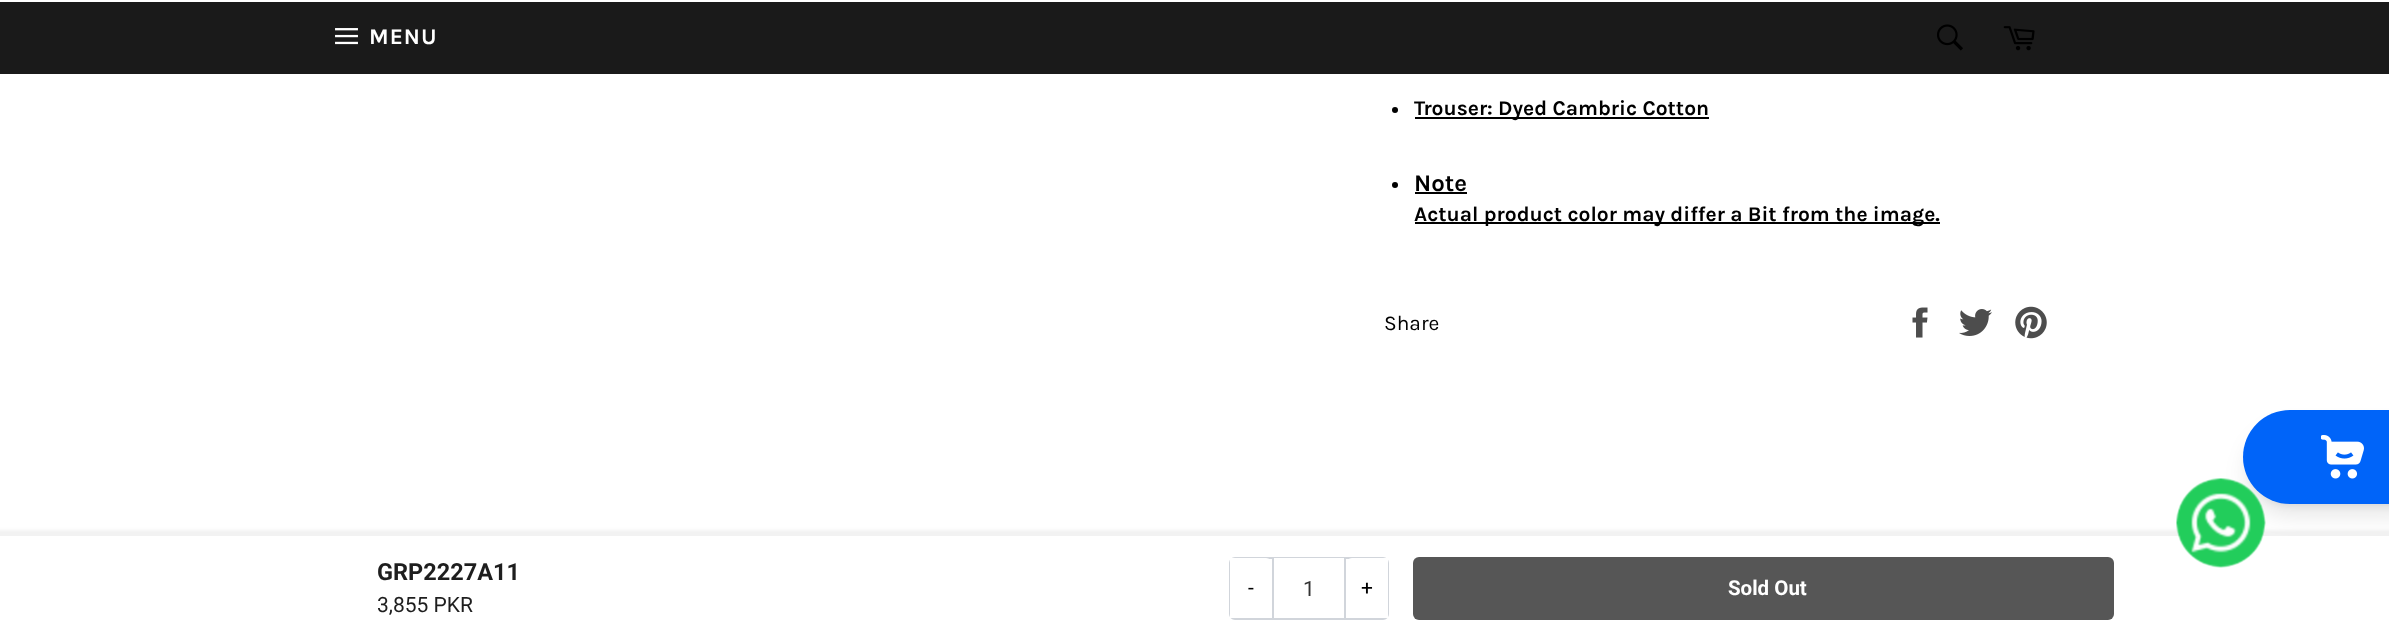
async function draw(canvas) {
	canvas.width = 2389;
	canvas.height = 640;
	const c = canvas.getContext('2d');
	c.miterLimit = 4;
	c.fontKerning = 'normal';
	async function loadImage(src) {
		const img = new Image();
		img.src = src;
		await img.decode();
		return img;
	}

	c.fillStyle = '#fff';
	c.fillRect(0, 0, 2389, 640);
	c.fillStyle = '#1a1a1a';
	c.fillRect(0, 2, 2389, 72);
	c.drawImage(await loadImage('img1.png'), 335, 28, 23, 17);
	c.letterSpacing = '1px';
	c.font = 'bold 22.5px Karla';
	c.fillStyle = '#fff';
	c.fillText('MENU', 369, 44);
	c.drawImage(await loadImage('img2.png'), 1937, 24, 26, 27);
	c.drawImage(await loadImage('img3.png'), 2003, 26, 32, 25);
	c.fillStyle = '#000';
	c.beginPath();
	c.arc(1395, 110, 3, 0, 2 * Math.PI);
	c.fill();
	c.fillRect(1415, 117, 294, 2);
	c.letterSpacing = '0px';
	c.font = 'bold 21px Karla';
	c.fillText('Trouser: Dyed Cambric Cotton', 1414, 115);
	c.beginPath();
	c.arc(1395, 185, 3, 0, 2 * Math.PI);
	c.fill();
	c.font = 'bold 24px Karla';
	c.fillText('Note', 1414, 191);
	c.fillRect(1415, 192, 52, 2);
	c.fillRect(1415, 222, 525, 2);
	c.font = 'bold 21px Karla';
	c.fillText('Actual product color may differ a Bit from the image.', 1414, 221);
	c.font = '21px Karla';
	c.fillText('Share', 1384, 330);
	c.drawImage(await loadImage('img4.png'), 1912, 307, 16, 31);
	c.drawImage(await loadImage('img5.png'), 1959, 309, 33, 27);
	c.drawImage(await loadImage('img6.png'), 2015, 306, 32, 33);
	c.fillStyle = '#0000001a';
	c.filter = 'blur(4.5px)';
	c.beginPath();
	c.roundRect(2249, 422, 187, 82, 41);
	c.fill();
	c.filter = 'none';
	c.fillStyle = '#0000000d';
	c.filter = 'blur(1.5px)';
	c.beginPath();
	c.rect(-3, 530, 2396, 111);
	c.fill();
	c.filter = 'none';
	c.fillStyle = '#fff';
	c.fillRect(0, 536, 2389, 104);
	c.fillStyle = '#0000001a';
	c.filter = 'blur(11px)';
	c.beginPath();
	c.roundRect(2247, 429, 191, 86, 43);
	c.fill();
	c.filter = 'none';
	c.fillStyle = '#0064f9';
	c.beginPath();
	c.roundRect(2243, 410, 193, 94, 47);
	c.fill();
	c.drawImage(await loadImage('img7.png'), 2321, 435, 43, 44);
	c.drawImage(await loadImage('img8.png'), 2176, 478, 90, 90);
	c.font = 'bold 23.5px Roboto';
	c.fillStyle = '#1e1e1e';
	c.fillText('GRP2227A11', 377, 580);
	c.font = '21px Roboto';
	c.fillText('3,855 PKR', 377, 612);
	c.beginPath();
	c.roundRect(1230, 558, 158, 61, 5);
	c.strokeStyle = '#d1d5db';
	c.lineWidth = 2;
	c.stroke();
	c.fillStyle = '#fff';
	c.beginPath();
	c.roundRect(1230, 558, 42, 60, [0, 6, 6, 0]);
	c.fill();
	c.fillStyle = '#000';
	c.fillText('-', 1248, 595);
	for (const [x, y, w, h, color] of [
		[1274, 558, 70, 1, '#fff'],
		[1344, 558, 2, 60, '#d1d5db'],
		[1272, 558, 2, 60, '#d1d5db'],
	]) {
		c.fillStyle = color;
		c.fillRect(x, y, w, h);
	}
	c.fillStyle = '#333';
	c.fillText('1', 1303, 596);
	c.fillStyle = '#fff';
	c.beginPath();
	c.roundRect(1346, 558, 42, 60, [6, 0, 0, 6]);
	c.fill();
	c.fillStyle = '#000';
	c.fillText('+', 1361, 595);
	c.fillStyle = '#565656';
	c.beginPath();
	c.roundRect(1413, 557, 701, 63, 6);
	c.fill();
	c.font = 'bold 20.5px Roboto';
	c.fillStyle = '#fff';
	c.fillText('Sold Out', 1728, 595);
}

draw(document.querySelector('canvas'));
